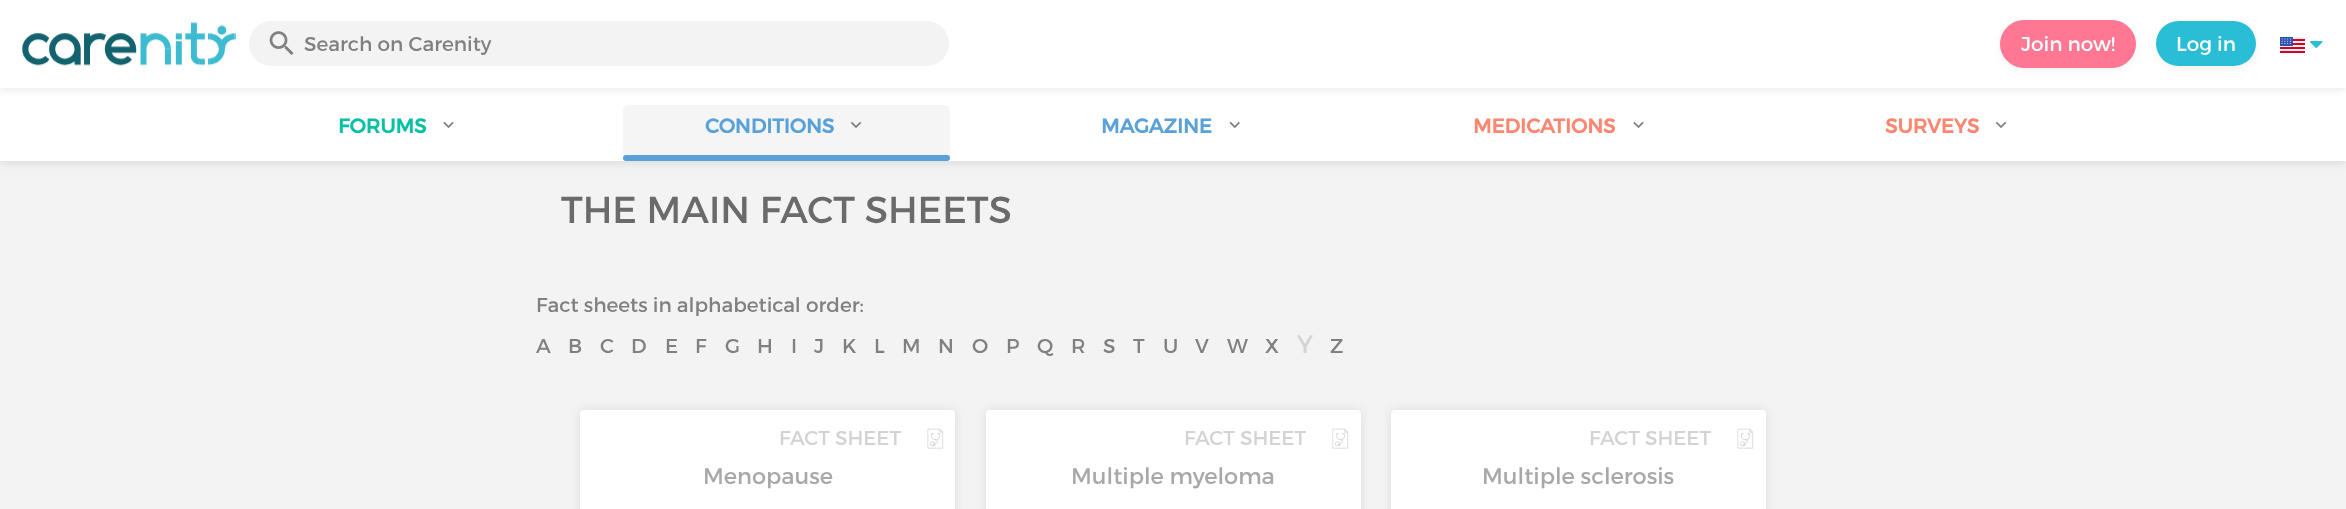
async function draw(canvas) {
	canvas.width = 2346;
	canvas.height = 509;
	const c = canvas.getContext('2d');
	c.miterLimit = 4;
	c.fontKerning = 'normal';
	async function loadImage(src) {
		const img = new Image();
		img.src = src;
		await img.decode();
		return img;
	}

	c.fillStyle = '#f3f3f3';
	c.fillRect(0, 0, 2346, 509);
	c.fillStyle = '#0000001a';
	c.filter = 'blur(5px)';
	c.beginPath();
	c.rect(0, 89, 2346, 74);
	c.fill();
	c.filter = 'none';
	c.fillStyle = '#fff';
	c.fillRect(0, 88, 2346, 73);
	c.fillStyle = '#0000001a';
	c.filter = 'blur(5px)';
	c.beginPath();
	c.rect(0, 1, 2346, 88);
	c.fill();
	c.filter = 'none';
	c.fillStyle = '#fff';
	c.fillRect(0, 0, 2346, 88);
	c.drawImage(await loadImage('img1.png'), 22, 22, 214, 44);
	c.fillStyle = '#f3f3f3';
	c.beginPath();
	c.roundRect(249, 21, 700, 45, 22.5);
	c.fill();
	c.drawImage(await loadImage('img2.png'), 269, 31, 25, 24);
	c.font = '20px Montserrat';
	c.fillStyle = '#808080';
	c.fillText('Search on Carenity', 304, 51);
	c.fillStyle = '#0000000d';
	c.filter = 'blur(5px)';
	c.beginPath();
	c.roundRect(2000, 23, 136, 47, 23.5);
	c.fill();
	c.filter = 'none';
	c.fillStyle = '#ff7793';
	c.beginPath();
	c.roundRect(2000.5, 20.5, 135, 47, 23.5);
	c.fill();
	c.strokeStyle = '#ff7793';
	c.stroke();
	c.fillStyle = '#fff';
	c.fillText('Join now!', 2021, 51);
	c.fillStyle = '#0000000d';
	c.filter = 'blur(5px)';
	c.beginPath();
	c.roundRect(2156, 24, 100, 45, 22.5);
	c.fill();
	c.filter = 'none';
	c.fillStyle = '#29bed6';
	c.beginPath();
	c.roundRect(2156, 21, 100, 45, 22.5);
	c.fill();
	c.fillStyle = '#fff';
	c.fillText('Log in', 2176, 51);
	c.drawImage(await loadImage('img3.png'), 2280, 37, 25, 16);
	c.drawImage(await loadImage('img4.png'), 2310, 41, 13, 7);
	c.font = 'bold 20px Montserrat';
	c.fillStyle = '#06c1a6';
	c.fillText('FORUMS', 338, 133);
	c.drawImage(await loadImage('img5.png'), 443, 121, 11, 8);
	c.fillStyle = '#f5f5f5';
	c.beginPath();
	c.roundRect(623, 105, 327, 56, [6, 6, 4, 4]);
	c.fill();
	c.fillStyle = '#58a2d9';
	c.fillText('CONDITIONS', 705, 133);
	c.drawImage(await loadImage('img6.png'), 850, 121, 12, 7);
	c.beginPath();
	c.roundRect(623, 155, 327, 6, 3);
	c.fill();
	c.fillText('MAGAZINE', 1101, 133);
	c.drawImage(await loadImage('img7.png'), 1229, 121, 11, 8);
	c.fillStyle = '#fc866f';
	c.fillText('MEDICATIONS', 1473, 133);
	c.drawImage(await loadImage('img5.png'), 1633, 121, 11, 8);
	c.fillText('SURVEYS', 1885, 133);
	c.drawImage(await loadImage('img8.png'), 1995, 121, 12, 7);
	c.font = '37.5px Montserrat';
	c.fillStyle = '#6a6a6a';
	c.fillText('THE MAIN FACT SHEETS', 561, 223);
	c.font = '20px Montserrat';
	c.fillStyle = '#808080';
	for (const [text, x, y] of [
		['Fact sheets in alphabetical order:', 536, 312],
		['A', 536, 353],
		['B', 568, 353],
		['C', 600, 353],
		['D', 631, 353],
		['E', 665, 353],
		['F', 695, 353],
		['G', 725, 353],
		['H', 757, 353],
		['I', 791, 353],
		['J', 814, 353],
		['K', 842, 353],
		['L', 874, 353],
		['M', 902, 353],
		['N', 938, 353],
		['O', 972, 353],
		['P', 1006, 353],
		['Q', 1037, 353],
		['R', 1071, 353],
		['S', 1103, 353],
		['T', 1133, 353],
		['U', 1163, 353],
		['V', 1195, 353],
		['W', 1227, 353],
		['X', 1265, 353],
	]) {
		c.fillText(text, x, y);
	}
	c.font = '25px Montserrat';
	c.fillStyle = '#d3d3d3';
	c.fillText('Y', 1297, 353);
	c.font = '20px Montserrat';
	c.fillStyle = '#808080';
	c.fillText('Z', 1330, 353);
	c.fillStyle = '#00000017';
	c.filter = 'blur(5px)';
	c.beginPath();
	c.roundRect(580, 410, 375, 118, 4);
	c.fill();
	c.filter = 'none';
	c.fillStyle = '#fff';
	c.beginPath();
	c.roundRect(580, 410, 375, 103, 4);
	c.fill();
	c.fillStyle = '#d3d3d3';
	c.fillText('FACT SHEET', 779, 445);
	c.drawImage(await loadImage('img9.png'), 927, 428, 17, 21);
	c.font = '22.5px Montserrat';
	c.fillStyle = '#a8a8a8';
	c.fillText('Menopause', 703, 484);
	c.fillStyle = '#00000017';
	c.filter = 'blur(5px)';
	c.beginPath();
	c.roundRect(986, 410, 375, 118, 4);
	c.fill();
	c.filter = 'none';
	c.fillStyle = '#fff';
	c.beginPath();
	c.roundRect(986, 410, 375, 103, 4);
	c.fill();
	c.font = '20px Montserrat';
	c.fillStyle = '#d3d3d3';
	c.fillText('FACT SHEET', 1184, 445);
	c.drawImage(await loadImage('img9.png'), 1332, 428, 17, 21);
	c.font = '22.5px Montserrat';
	c.fillStyle = '#a8a8a8';
	c.fillText('Multiple myeloma', 1071, 484);
	c.fillStyle = '#00000017';
	c.filter = 'blur(5px)';
	c.beginPath();
	c.roundRect(1391, 410, 375, 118, 4);
	c.fill();
	c.filter = 'none';
	c.fillStyle = '#fff';
	c.beginPath();
	c.roundRect(1391, 410, 375, 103, 4);
	c.fill();
	c.font = '20px Montserrat';
	c.fillStyle = '#d3d3d3';
	c.fillText('FACT SHEET', 1589, 445);
	c.drawImage(await loadImage('img9.png'), 1737, 428, 17, 21);
	c.font = '22.5px Montserrat';
	c.fillStyle = '#a8a8a8';
	c.fillText('Multiple sclerosis', 1482, 484);
}

draw(document.querySelector('canvas'));
